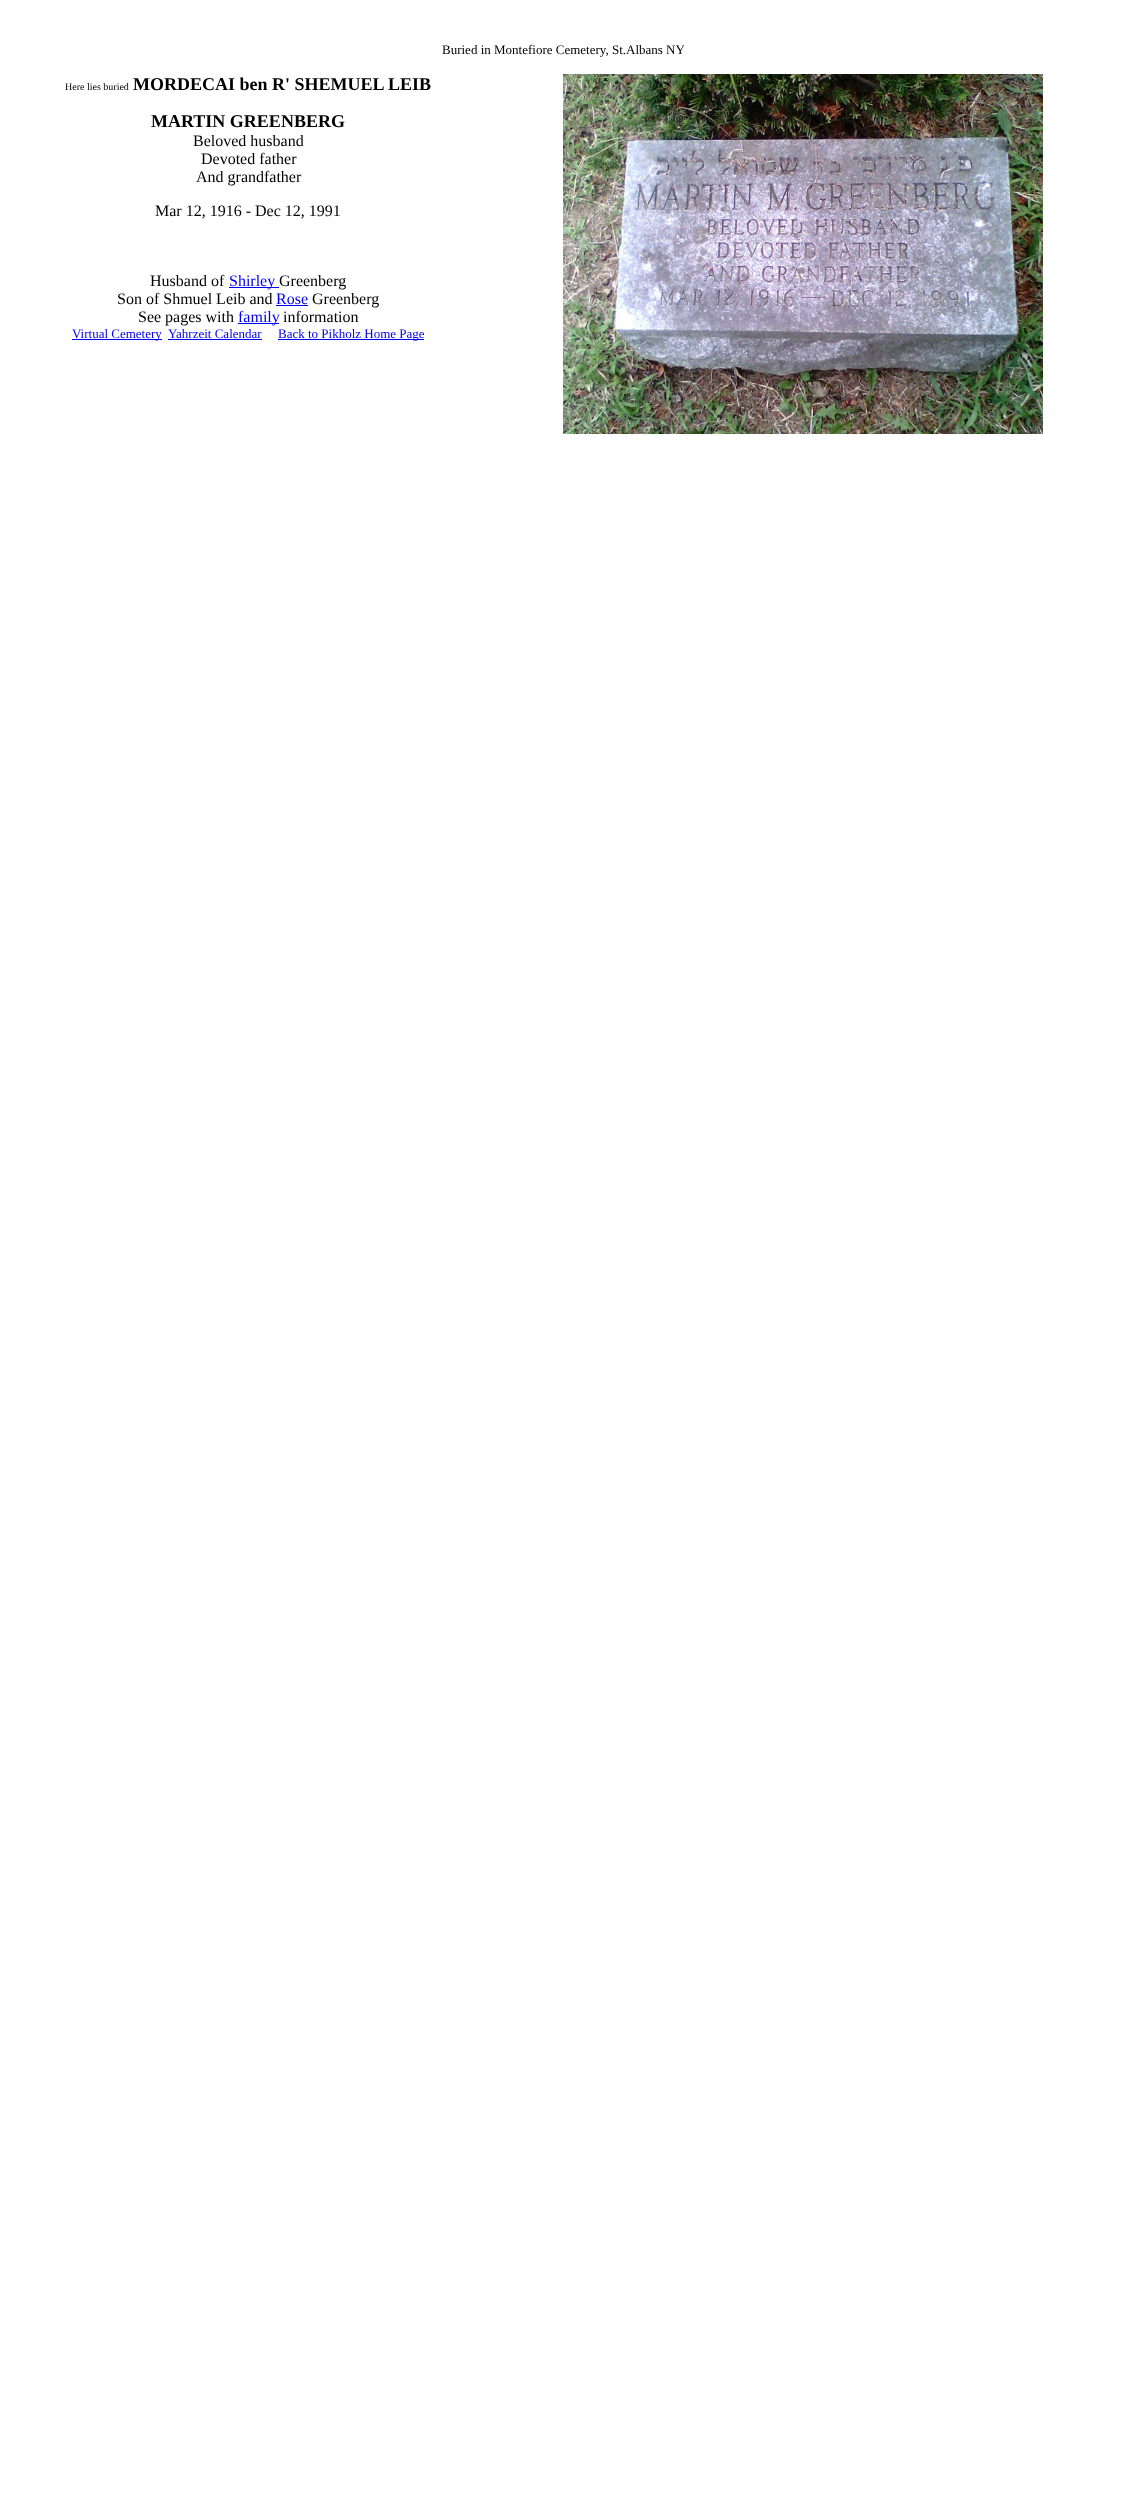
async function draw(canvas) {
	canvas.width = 1126;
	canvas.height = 2509;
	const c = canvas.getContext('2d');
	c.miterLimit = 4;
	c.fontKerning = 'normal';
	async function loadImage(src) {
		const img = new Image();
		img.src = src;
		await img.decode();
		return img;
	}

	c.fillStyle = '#fff';
	c.fillRect(0, 0, 1126, 2509);
	c.font = '13px Liberation Serif';
	c.fillStyle = '#000';
	c.fillText('Buried in Montefiore Cemetery, St.Albans NY', 442, 54);
	c.font = '10px Liberation Serif';
	c.fillText('Here lies buried', 65, 90);
	c.font = 'bold 18px Liberation Serif';
	c.fillText('MORDECAI ben R\' SHEMUEL LEIB', 133, 90);
	c.fillText('MARTIN GREENBERG', 151, 127);
	c.font = '16px Liberation Serif';
	for (const [text, x, y] of [
		['Beloved husband', 193, 146],
		['Devoted father', 201, 164],
		['And grandfather', 196, 182],
		['Mar 12, 1916 - Dec 12, 1991', 155, 216],
		['Husband of', 150, 286],
	]) {
		c.fillText(text, x, y);
	}
	c.fillStyle = '#00e';
	c.fillRect(229, 287, 50, 1);
	c.fillText('Shirley', 229, 286);
	c.fillStyle = '#000';
	c.fillText('Greenberg', 279, 286);
	c.fillText('Son of Shmuel Leib and', 117, 304);
	c.fillStyle = '#00e';
	c.fillText('Rose', 276, 304);
	c.fillRect(276, 305, 32, 1);
	c.fillStyle = '#000';
	c.fillText('Greenberg', 312, 304);
	c.fillText('See pages with', 138, 322);
	c.fillStyle = '#00e';
	c.fillRect(238, 323, 41, 1);
	c.fillText('family', 238, 322);
	c.fillStyle = '#000';
	c.fillText('information', 283, 322);
	c.fillStyle = '#00e';
	c.fillRect(72, 339, 90, 1);
	c.font = '13px Liberation Serif';
	c.fillText('Virtual Cemetery', 72, 338);
	c.fillText('Yahrzeit Calendar', 168, 338);
	c.fillRect(168, 339, 94, 1);
	c.fillRect(278, 339, 146, 1);
	c.fillText('Back to Pikholz Home Page', 278, 338);
	c.drawImage(await loadImage('img1.png'), 563, 74, 480, 360);
}

draw(document.querySelector('canvas'));
